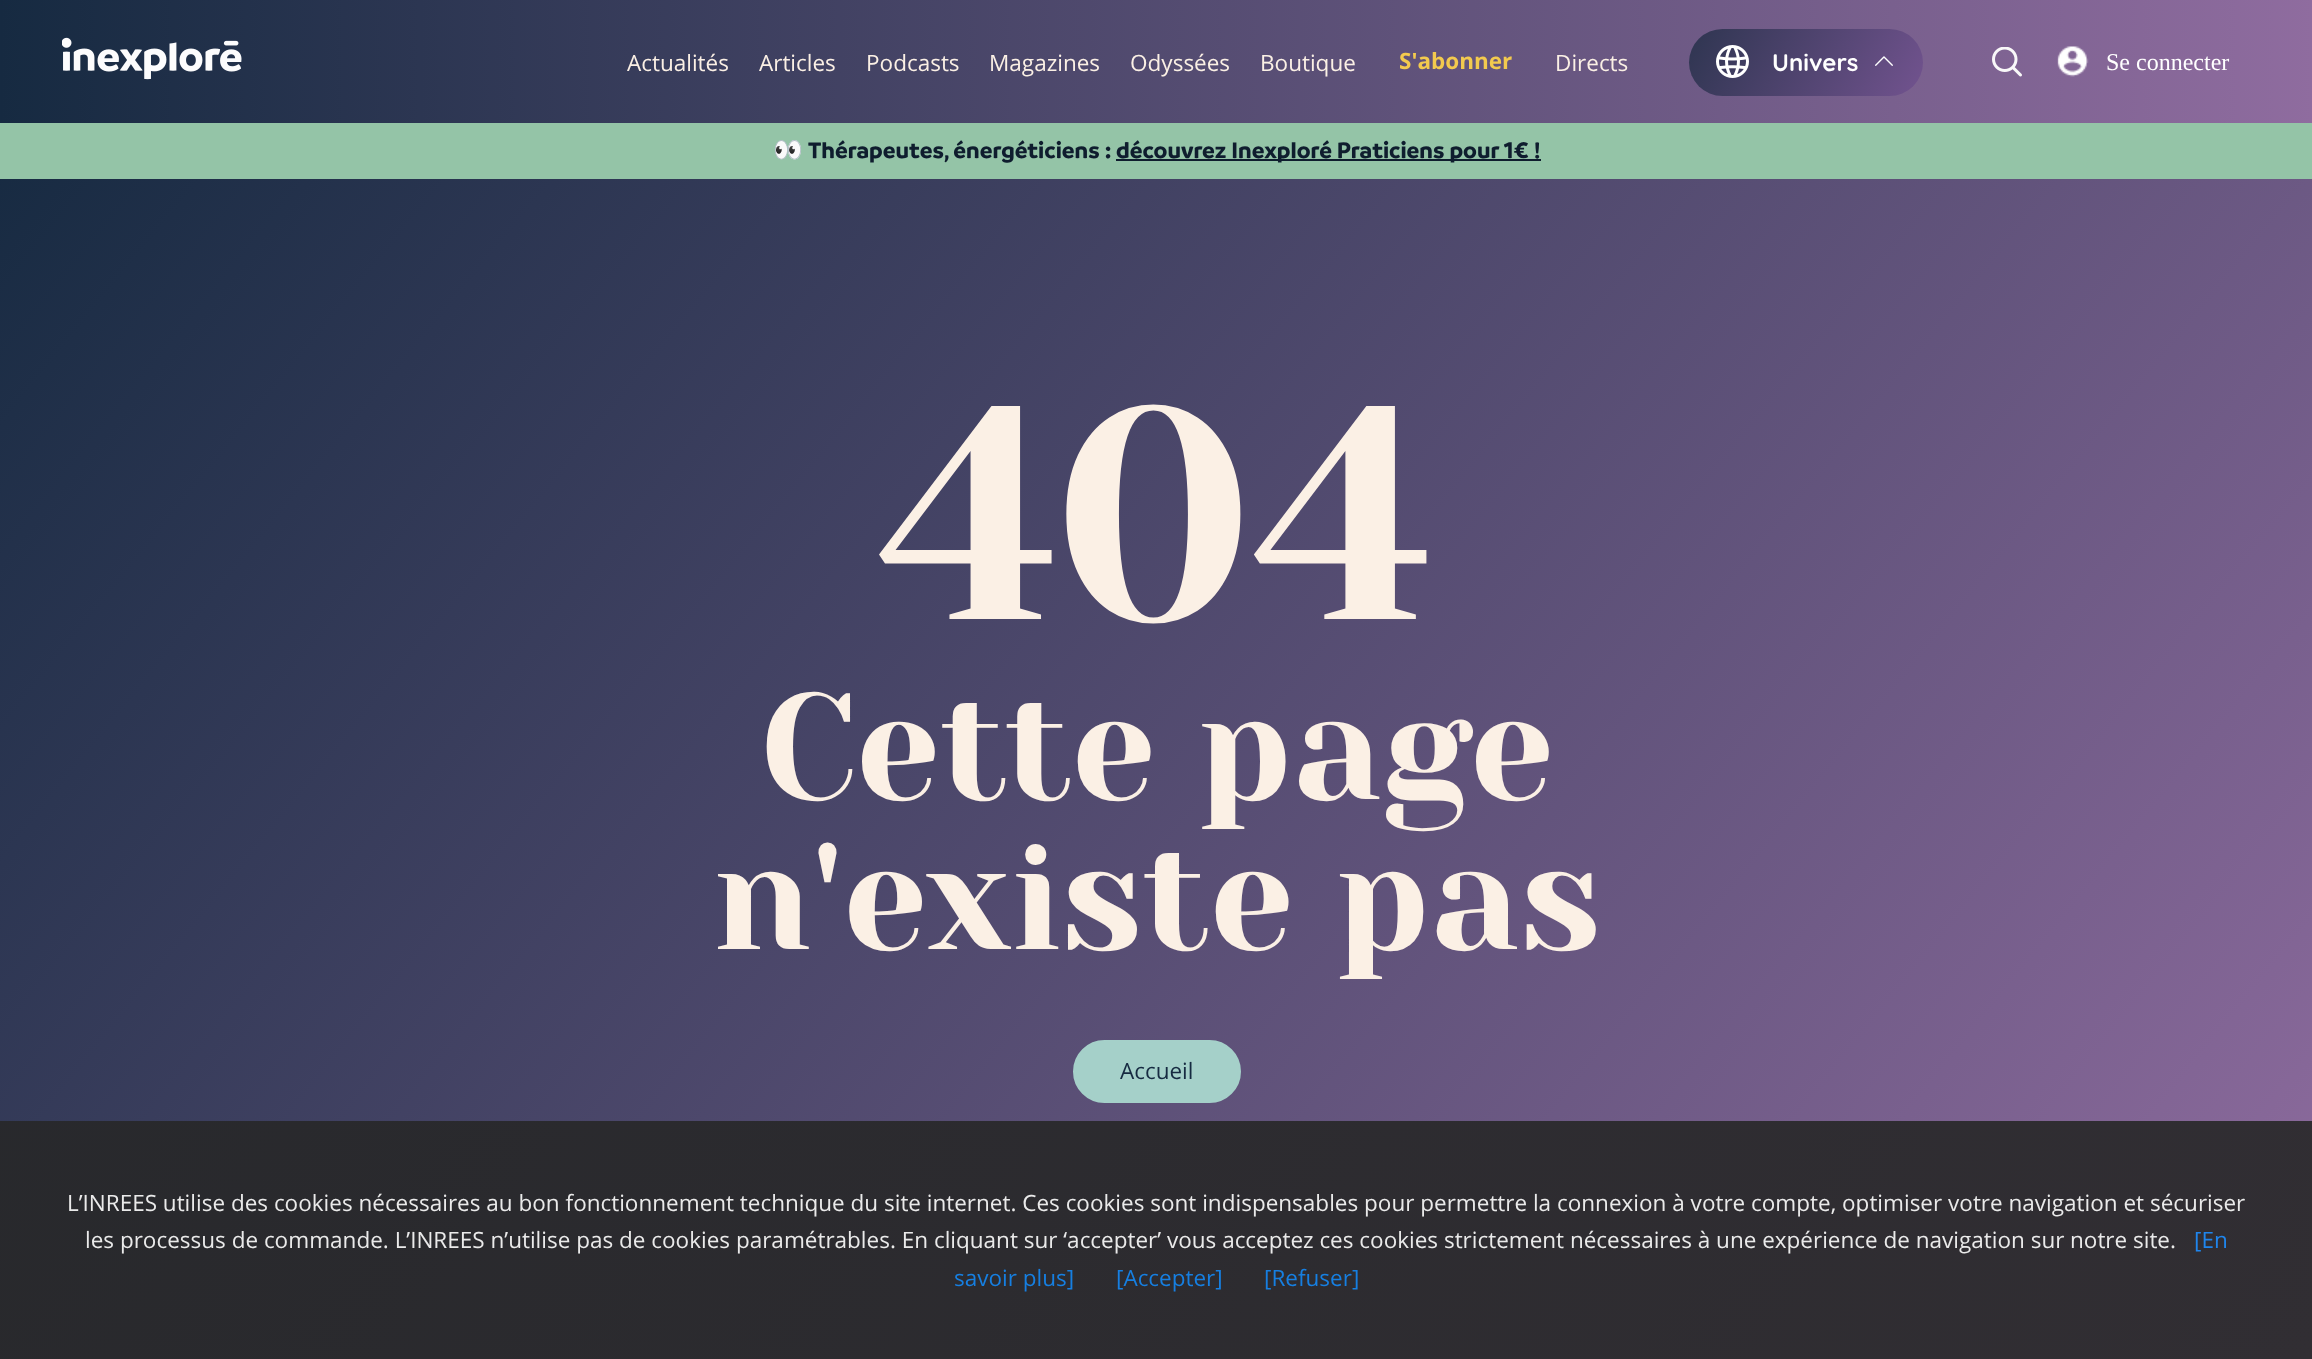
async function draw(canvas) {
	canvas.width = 2312;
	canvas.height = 1359;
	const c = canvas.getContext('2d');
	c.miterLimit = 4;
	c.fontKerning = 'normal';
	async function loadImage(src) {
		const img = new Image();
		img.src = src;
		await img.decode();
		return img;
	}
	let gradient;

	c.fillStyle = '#fff';
	c.fillRect(0, 0, 2312, 1359);
	gradient = c.createLinearGradient(0, 89, 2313, 89);
	gradient.addColorStop(0, '#162a41');
	gradient.addColorStop(1, '#8f6c9f');
	c.fillStyle = gradient;
	c.fillRect(0, 0, 2312, 123);
	c.drawImage(await loadImage('img1.png'), 62, 37, 180, 43);
	c.font = '22.5px Open Sans';
	c.fillStyle = '#fbf0e5';
	for (const [text, x, y] of [
		['Actualités', 627, 71],
		['Articles', 759, 71],
		['Podcasts', 866, 71],
		['Magazines', 989, 71],
		['Odyssées', 1130, 71],
		['Boutique', 1260, 71],
	]) {
		c.fillText(text, x, y);
	}
	c.font = 'bold 22.5px Open Sans';
	c.fillStyle = '#f3ca4e';
	c.fillText('S\'abonner', 1399, 69);
	c.font = '22.5px Open Sans';
	c.fillStyle = '#fbf0e5';
	c.fillText('Directs', 1555, 71);
	gradient = c.createLinearGradient(1700, 6.7, 1912, 118);
	gradient.addColorStop(0, '#2e3550');
	gradient.addColorStop(1, '#72538f');
	c.fillStyle = gradient;
	c.beginPath();
	c.roundRect(1689, 29, 234, 67, 33.5);
	c.fill();
	c.drawImage(await loadImage('img2.png'), 1716, 45, 33, 33);
	c.font = 'bold 24px Quicksand';
	c.fillStyle = '#fff';
	c.fillText('Univers', 1772, 71);
	c.drawImage(await loadImage('img3.png'), 1875, 56, 18, 10);
	c.drawImage(await loadImage('img4.png'), 1992, 47, 30, 30);
	c.drawImage(await loadImage('img5.png'), 2057, 46, 32, 31);
	c.font = '24px Liberation Serif';
	c.fillText('Se connecter', 2106, 70);
	c.fillStyle = '#94c4a7';
	c.fillRect(0, 123, 2312, 56);
	c.font = '24px Noto Color Emoji';
	c.fillStyle = '#0f1d2e';
	c.fillText('👀', 773, 158);
	c.font = 'bold 24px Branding';
	c.fillText('Thérapeutes, énergéticiens :', 808, 158);
	c.fillRect(1116, 159, 425, 2);
	c.fillText('découvrez Inexploré Praticiens pour 1€ !', 1116, 158);
	gradient = c.createLinearGradient(156, -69, 2157, 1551);
	gradient.addColorStop(0, '#162a41');
	gradient.addColorStop(1, '#8f6c9f');
	c.fillStyle = gradient;
	c.fillRect(0, 179, 2312, 942);
	gradient = c.createLinearGradient(156, -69, 2157, 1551);
	gradient.addColorStop(0, '#25272a');
	gradient.addColorStop(1, '#312e33');
	c.fillStyle = gradient;
	c.fillRect(0, 1121, 2312, 238);
	c.font = '300px Yeseva One';
	c.fillStyle = '#fbf0e5';
	c.fillText('404', 879, 619);
	c.font = '150px Yeseva One';
	c.fillText('Cette page', 760, 799);
	c.fillText('n\'existe pas', 712, 949);
	c.fillStyle = '#a5d0c9';
	c.beginPath();
	c.roundRect(1074.5, 1041.5, 165, 60, 30);
	c.fill();
	c.strokeStyle = '#a5d0c9';
	c.lineWidth = 3;
	c.stroke();
	c.font = '22.5px Open Sans';
	c.fillStyle = '#162a41';
	c.fillText('Accueil', 1120, 1079);
	c.fillStyle = '#eaeaea';
	for (const [text, x, y] of [
		['L’INREES utilise des cookies nécessaires au bon fonctionnement technique du site internet. Ces cookies sont indispensables pour permettre la connexion à votre compte, optimiser votre navigation et', 67, 1211],
		['sécuriser', 2150, 1211],
		['les processus de commande. L’INREES n’utilise pas de cookies paramétrables. En cliquant sur ‘accepter’ vous acceptez ces cookies strictement nécessaires à une expérience de navigation sur', 85, 1248],
		['notre site.', 2070, 1248],
	]) {
		c.fillText(text, x, y);
	}
	c.fillStyle = '#1f85ec';
	c.fillText('[En', 2194, 1248);
	c.fillStyle = '#167fe1';
	for (const [text, x, y] of [
		['savoir plus]', 954, 1286],
		['[Accepter]', 1116, 1286],
		['[Refuser]', 1264, 1286],
	]) {
		c.fillText(text, x, y);
	}
}

draw(document.querySelector('canvas'));
